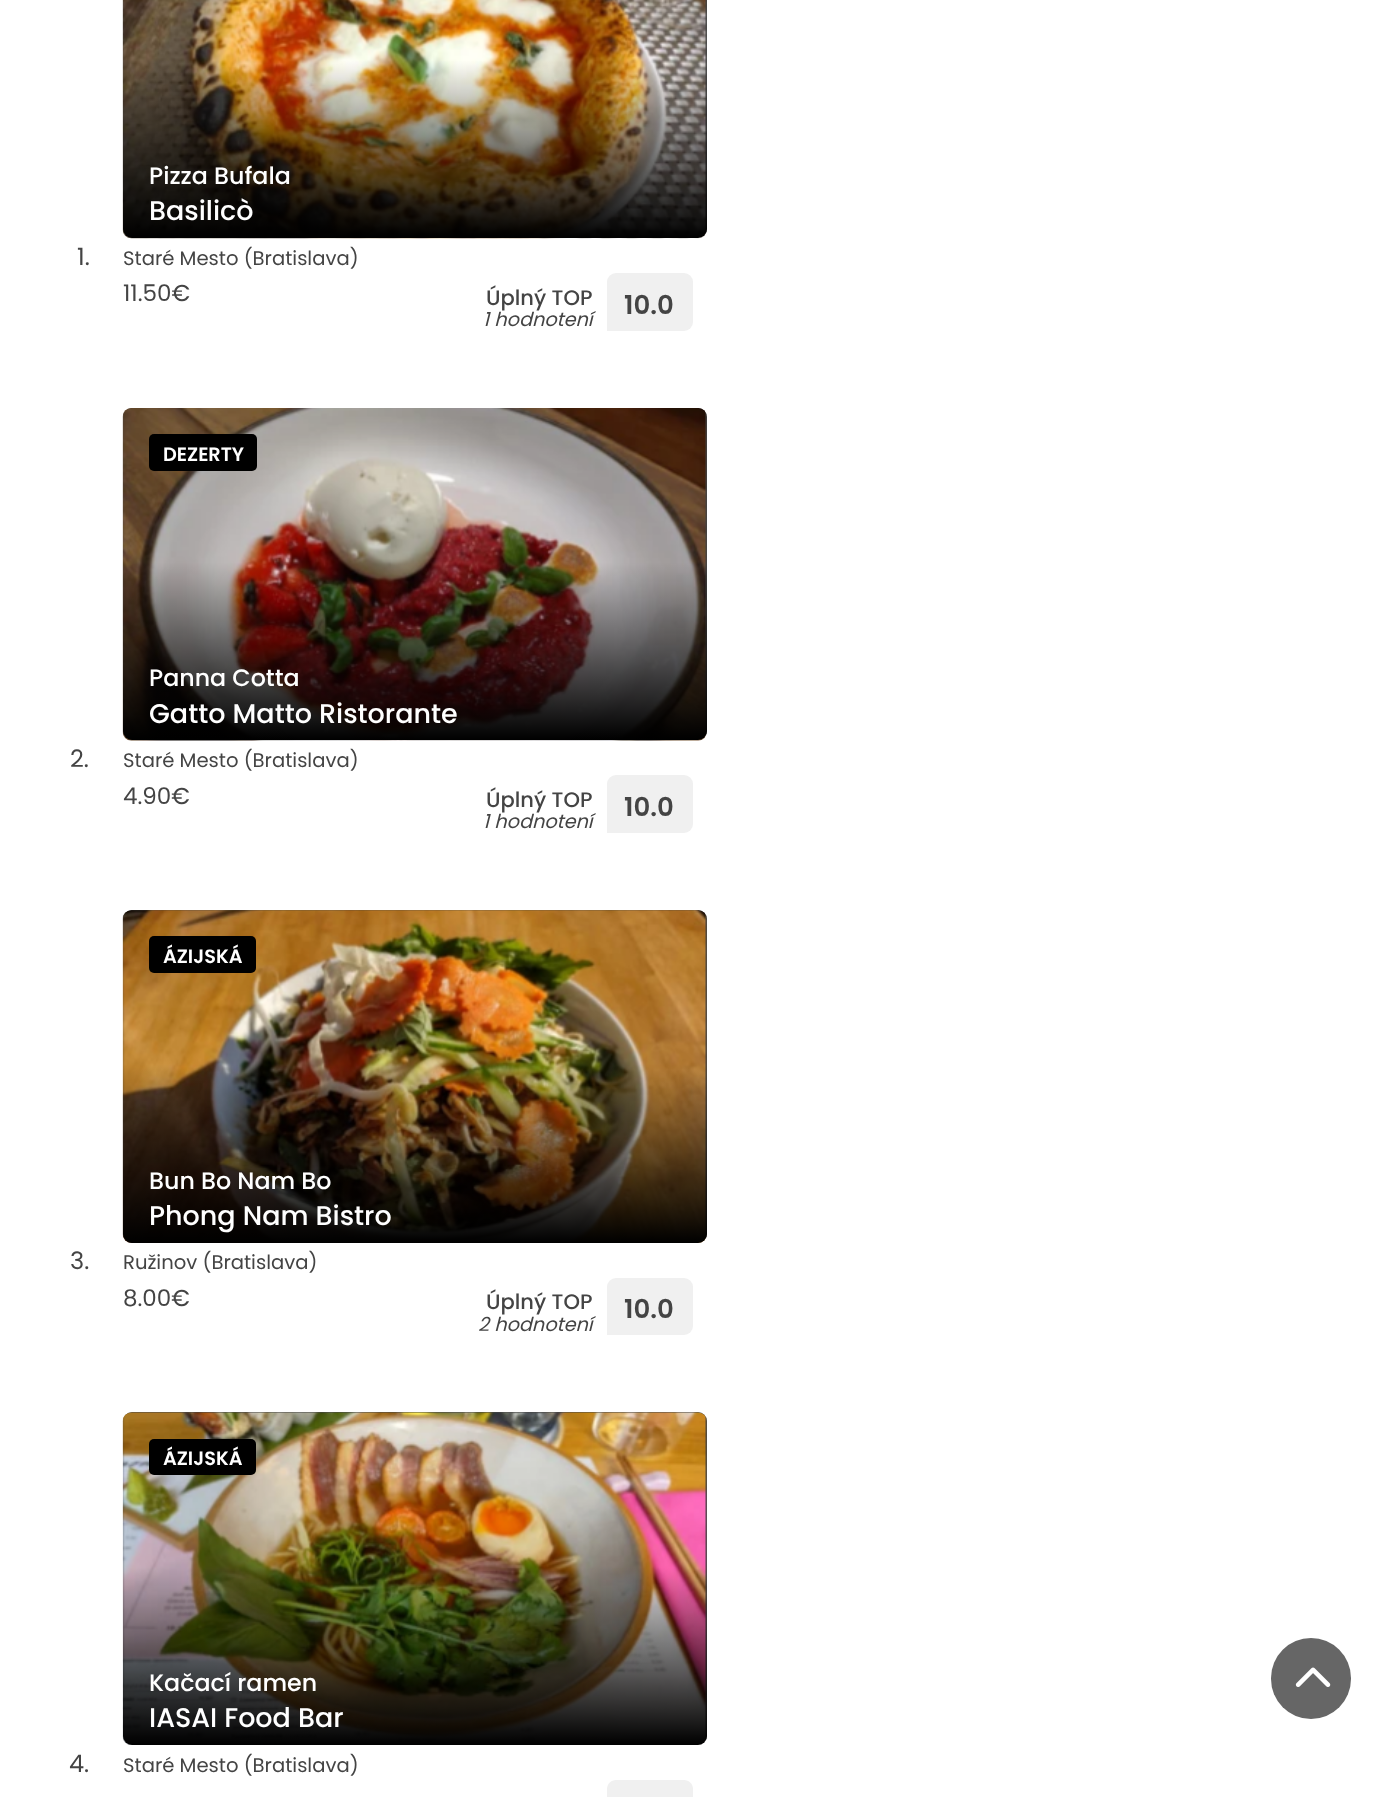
async function draw(canvas) {
	canvas.width = 1394;
	canvas.height = 1797;
	const c = canvas.getContext('2d');
	c.miterLimit = 4;
	c.fontKerning = 'normal';
	async function loadImage(src) {
		const img = new Image();
		img.src = src;
		await img.decode();
		return img;
	}
	let gradient;

	c.fillStyle = '#fff';
	c.fillRect(0, 0, 1394, 1797);
	c.font = '24px Poppins';
	c.fillStyle = '#444';
	c.fillText('1.', 77, 265);
	c.beginPath();
	c.roundRect(123, -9, 584, 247, 9);
	c.fill();
	c.drawImage(await loadImage('img1.png'), 122, 0, 585, 239);
	gradient = c.createLinearGradient(415, 51, 415, 238);
	gradient.addColorStop(0.05, '#00000000');
	gradient.addColorStop(1, '#000');
	c.fillStyle = gradient;
	c.beginPath();
	c.roundRect(123, 51, 584, 187, [0, 0, 9, 9]);
	c.fill();
	c.font = '500 23.75px Poppins';
	c.fillStyle = '#fff';
	c.fillText('Pizza Bufala', 149, 184);
	c.font = '500 27px Poppins';
	c.fillText('Basilicò', 149, 220);
	c.font = '19.6px Poppins';
	c.fillStyle = '#444';
	c.fillText('Staré Mesto (Bratislava)', 123, 265);
	c.font = '23px Poppins';
	c.fillText('11.50€', 123, 301);
	c.font = '500 21px Poppins';
	c.fillText('Úplný TOP', 486, 305);
	c.font = 'italic 19.25px Poppins';
	c.fillText('1 hodnotení', 483, 326);
	c.fillStyle = '#f0f0f0';
	c.beginPath();
	c.roundRect(607, 273, 86, 58, [9, 9, 9, 0]);
	c.fill();
	c.font = '600 26px Poppins';
	c.fillStyle = '#444';
	c.fillText('10.0', 624, 314);
	c.font = '24px Poppins';
	c.fillText('2.', 70, 767);
	c.beginPath();
	c.roundRect(123, 408, 584, 332, 9);
	c.fill();
	c.drawImage(await loadImage('img2.png'), 122, 408, 585, 333);
	c.fillStyle = '#000';
	c.beginPath();
	c.roundRect(149, 434, 108, 37, 5);
	c.fill();
	c.font = '600 19.25px Poppins';
	c.fillStyle = '#fff';
	c.fillText('DEZERTY', 163, 461);
	gradient = c.createLinearGradient(415, 553, 415, 740);
	gradient.addColorStop(0.05, '#00000000');
	gradient.addColorStop(1, '#000');
	c.fillStyle = gradient;
	c.beginPath();
	c.roundRect(123, 553, 584, 187, [0, 0, 9, 9]);
	c.fill();
	c.font = '500 23.75px Poppins';
	c.fillStyle = '#fff';
	c.fillText('Panna Cotta', 149, 686);
	c.font = '500 27px Poppins';
	c.fillText('Gatto Matto Ristorante', 149, 723);
	c.font = '19.6px Poppins';
	c.fillStyle = '#444';
	c.fillText('Staré Mesto (Bratislava)', 123, 767);
	c.font = '23px Poppins';
	c.fillText('4.90€', 123, 804);
	c.font = '500 21px Poppins';
	c.fillText('Úplný TOP', 486, 807);
	c.font = 'italic 19.25px Poppins';
	c.fillText('1 hodnotení', 483, 828);
	c.fillStyle = '#f0f0f0';
	c.beginPath();
	c.roundRect(607, 775, 86, 58, [9, 9, 9, 0]);
	c.fill();
	c.font = '600 26px Poppins';
	c.fillStyle = '#444';
	c.fillText('10.0', 624, 816);
	c.font = '24px Poppins';
	c.fillText('3.', 70, 1269);
	c.beginPath();
	c.roundRect(123, 910, 584, 333, 9);
	c.fill();
	c.drawImage(await loadImage('img3.png'), 122, 910, 585, 333);
	c.fillStyle = '#000';
	c.beginPath();
	c.roundRect(149, 936, 107, 37, 5);
	c.fill();
	c.font = '600 19.25px Poppins';
	c.fillStyle = '#fff';
	c.fillText('ÁZIJSKÁ', 163, 963);
	gradient = c.createLinearGradient(415, 1055, 415, 1243);
	gradient.addColorStop(0.05, '#00000000');
	gradient.addColorStop(1, '#000');
	c.fillStyle = gradient;
	c.beginPath();
	c.roundRect(123, 1055, 584, 188, [0, 0, 9, 9]);
	c.fill();
	c.font = '500 23.75px Poppins';
	c.fillStyle = '#fff';
	c.fillText('Bun Bo Nam Bo', 149, 1189);
	c.font = '500 27px Poppins';
	c.fillText('Phong Nam Bistro', 149, 1225);
	c.font = '19.6px Poppins';
	c.fillStyle = '#444';
	c.fillText('Ružinov (Bratislava)', 123, 1269);
	c.font = '23px Poppins';
	c.fillText('8.00€', 123, 1306);
	c.font = '500 21px Poppins';
	c.fillText('Úplný TOP', 486, 1309);
	c.font = 'italic 19.25px Poppins';
	c.fillText('2 hodnotení', 478, 1331);
	c.fillStyle = '#f0f0f0';
	c.beginPath();
	c.roundRect(607, 1278, 86, 57, [9, 9, 9, 0]);
	c.fill();
	c.font = '600 26px Poppins';
	c.fillStyle = '#444';
	c.fillText('10.0', 624, 1318);
	c.font = '24px Poppins';
	c.fillText('4.', 69, 1772);
	c.beginPath();
	c.roundRect(123, 1412, 584, 333, 9);
	c.fill();
	c.drawImage(await loadImage('img4.png'), 122, 1412, 585, 333);
	c.fillStyle = '#000';
	c.beginPath();
	c.roundRect(149, 1439, 107, 36, 5);
	c.fill();
	c.font = '600 19.25px Poppins';
	c.fillStyle = '#fff';
	c.fillText('ÁZIJSKÁ', 163, 1465);
	gradient = c.createLinearGradient(415, 1558, 415, 1745);
	gradient.addColorStop(0.05, '#00000000');
	gradient.addColorStop(1, '#000');
	c.fillStyle = gradient;
	c.beginPath();
	c.roundRect(123, 1558, 584, 187, [0, 0, 9, 9]);
	c.fill();
	c.font = '500 23.75px Poppins';
	c.fillStyle = '#fff';
	c.fillText('Kačací ramen', 149, 1691);
	c.font = '500 27px Poppins';
	c.fillText('IASAI Food Bar', 149, 1727);
	c.font = '19.6px Poppins';
	c.fillStyle = '#444';
	c.fillText('Staré Mesto (Bratislava)', 123, 1772);
	c.fillStyle = '#f0f0f0';
	c.beginPath();
	c.moveTo(616, 1780);
	c.lineTo(684, 1780);
	c.bezierCurveTo(689, 1780, 693, 1784, 693, 1789);
	c.lineTo(693, 1797);
	c.bezierCurveTo(693, 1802, 689, 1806, 684, 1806);
	c.lineTo(607, 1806);
	c.lineTo(607, 1789);
	c.bezierCurveTo(607, 1784, 611, 1780, 616, 1780);
	c.closePath();
	c.fill();
	c.fillStyle = '#666';
	c.beginPath();
	c.roundRect(1271, 1638, 80, 81, 40);
	c.fill();
	c.drawImage(await loadImage('img5.png'), 1295, 1667, 36, 20);
}

draw(document.querySelector('canvas'));
